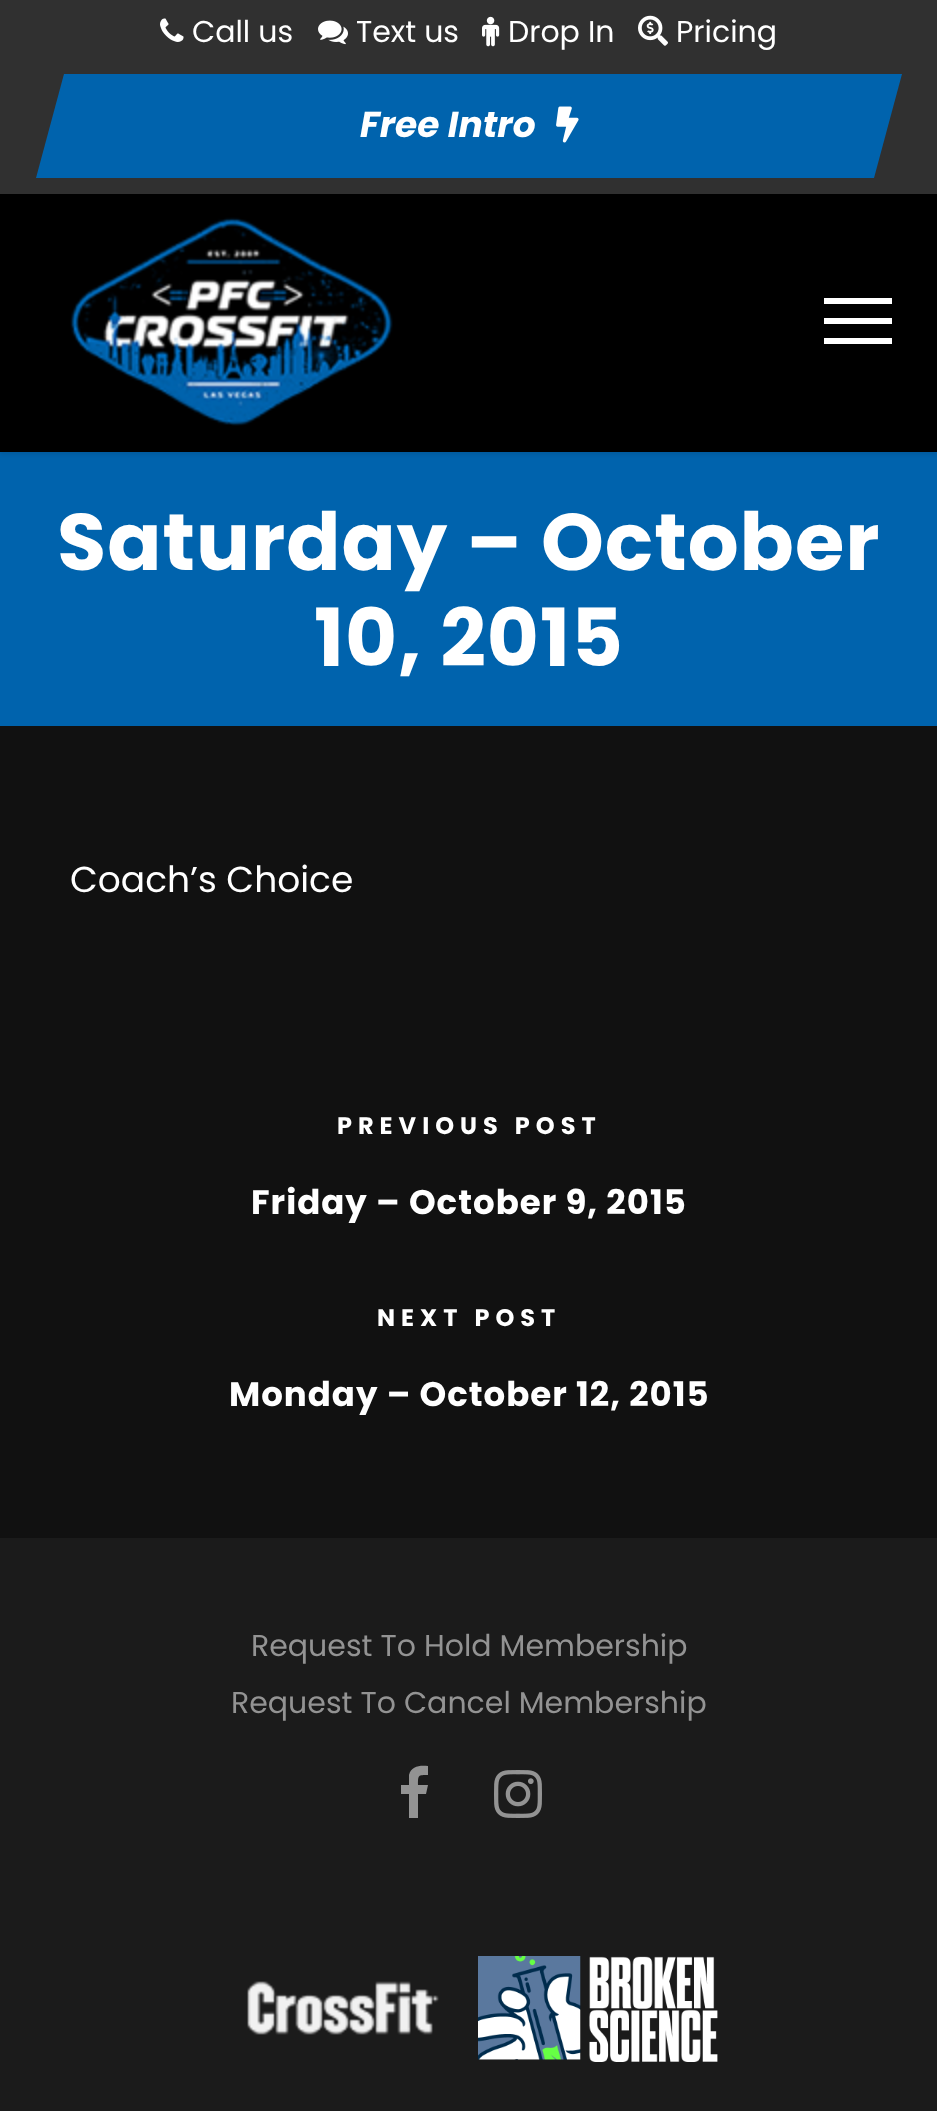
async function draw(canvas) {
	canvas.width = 937;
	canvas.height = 2111;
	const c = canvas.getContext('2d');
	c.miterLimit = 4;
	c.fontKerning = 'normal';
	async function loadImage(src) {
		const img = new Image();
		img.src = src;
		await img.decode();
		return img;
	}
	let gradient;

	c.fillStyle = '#111';
	c.fillRect(0, 0, 937, 2111);
	c.fillStyle = '#0063ad';
	c.fillRect(0, 452, 937, 274);
	c.fillStyle = '#0000001a';
	c.filter = 'blur(2px)';
	c.beginPath();
	c.rect(0, 2, 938, 452);
	c.fill();
	c.filter = 'none';
	c.fillStyle = '#000';
	c.fillRect(0, 194, 937, 258);
	c.drawImage(await loadImage('img1.png'), 70, 217, 323, 209);
	for (const [x, y, w, h, color] of [
		[824, 298, 68, 6, '#fff'],
		[824, 318, 68, 6, '#fff'],
		[824, 338, 68, 6, '#fff'],
		[0, 0, 937, 194, '#303030'],
	]) {
		c.fillStyle = color;
		c.fillRect(x, y, w, h);
	}
	c.drawImage(await loadImage('img2.png'), 160, 18, 24, 24);
	c.font = '30px Poppins';
	c.fillStyle = '#fff';
	c.fillText('Call us', 192, 42);
	c.drawImage(await loadImage('img3.png'), 318, 20, 30, 25);
	c.fillText('Text us', 356, 42);
	c.drawImage(await loadImage('img4.png'), 482, 16, 18, 31);
	c.fillText('Drop In', 508, 42);
	c.drawImage(await loadImage('img5.png'), 638, 15, 30, 31);
	c.fillText('Pricing', 676, 42);
	gradient = c.createLinearGradient(-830, 126, 888, 126);
	gradient.addColorStop(0, '#555');
	gradient.addColorStop(0.5, '#777');
	gradient.addColorStop(0.5, '#0063ad');
	gradient.addColorStop(1, '#0063ad');
	c.fillStyle = gradient;
	c.beginPath();
	c.moveTo(64, 74);
	c.lineTo(902, 74);
	c.lineTo(874, 178);
	c.lineTo(36, 178);
	c.closePath();
	c.fill();
	c.font = 'italic bold 36px Poppins';
	c.fillStyle = '#fff';
	c.fillText('Free Intro', 360, 137);
	c.drawImage(await loadImage('img6.png'), 556, 106, 23, 37);
	c.letterSpacing = '1px';
	c.font = 'bold 80px Poppins';
	c.fillText('Saturday – October', 57, 570);
	c.fillText('10, 2015', 314, 666);
	c.letterSpacing = '0px';
	c.font = '36px Poppins';
	c.fillText('Coach’s Choice', 70, 892);
	c.letterSpacing = '6px';
	c.font = 'bold 24px Poppins';
	c.fillText('PREVIOUS POST', 337, 1134);
	c.letterSpacing = '1px';
	c.font = 'bold 34px Poppins';
	c.fillText('Friday – October 9, 2015', 251, 1214);
	c.letterSpacing = '6px';
	c.font = 'bold 24px Poppins';
	c.fillText('NEXT POST', 377, 1326);
	c.letterSpacing = '1px';
	c.font = 'bold 34px Poppins';
	c.fillText('Monday – October 12, 2015', 229, 1406);
	c.fillStyle = '#1b1b1b';
	c.fillRect(0, 1538, 937, 573);
	c.letterSpacing = '0px';
	c.font = '30px Poppins';
	c.fillStyle = '#939393';
	c.fillText('Request To Hold Membership', 251, 1656);
	c.fillText('Request To Cancel Membership', 231, 1713);
	c.beginPath();
	c.moveTo(428, 1766);
	c.lineTo(428, 1775);
	c.bezierCurveTo(418, 1775, 418, 1775, 418, 1785);
	c.lineTo(428, 1785);
	c.lineTo(426, 1794);
	c.lineTo(418, 1794);
	c.lineTo(418, 1818);
	c.lineTo(409, 1818);
	c.lineTo(409, 1794);
	c.lineTo(401, 1794);
	c.lineTo(401, 1785);
	c.lineTo(409, 1785);
	c.lineTo(409, 1775);
	c.bezierCurveTo(411, 1766, 420, 1765, 428, 1766);
	c.closePath();
	c.fill();
	c.drawImage(await loadImage('img7.png'), 494, 1770, 48, 48);
	c.drawImage(await loadImage('img8.png'), 247, 1981, 192, 54);
	c.drawImage(await loadImage('img9.png'), 478, 1956, 240, 106);
}

draw(document.querySelector('canvas'));
